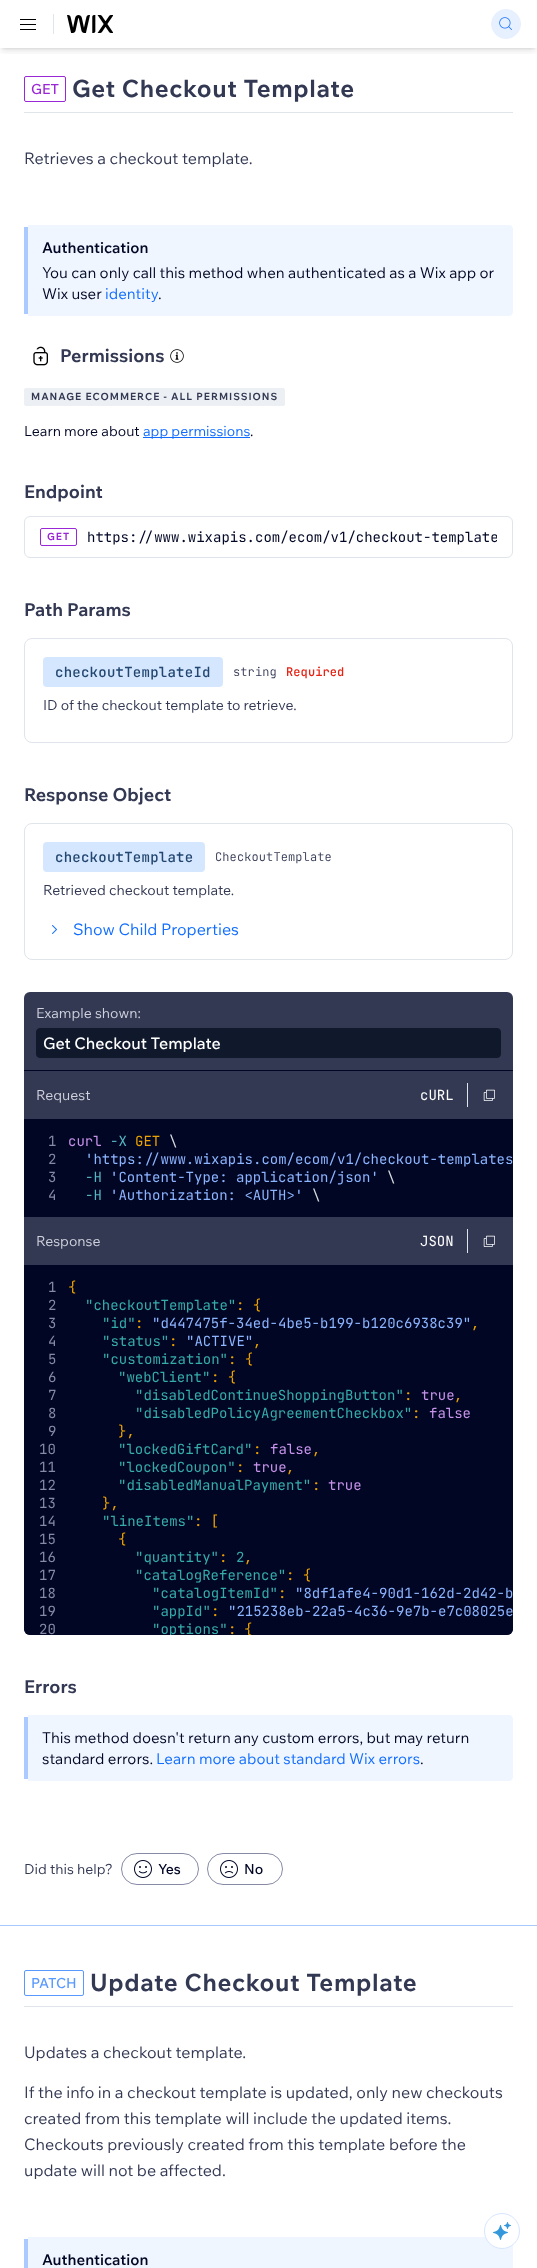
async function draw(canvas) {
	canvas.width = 537;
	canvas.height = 2268;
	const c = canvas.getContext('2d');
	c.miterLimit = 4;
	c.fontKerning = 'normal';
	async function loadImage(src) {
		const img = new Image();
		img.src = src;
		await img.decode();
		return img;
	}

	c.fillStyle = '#fff';
	c.fillRect(0, 0, 537, 2268);
	c.save();
	c.beginPath();
	c.rect(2, 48, 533, 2);
	c.clip();
	c.fillStyle = '#0000001a';
	c.filter = 'blur(2px)';
	c.beginPath();
	c.rect(2, 4, 533, 44);
	c.fill();
	c.filter = 'none';
	c.restore();
	c.save();
	c.beginPath();
	c.rect(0, 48, 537, 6);
	c.clip();
	c.fillStyle = '#0000001a';
	c.filter = 'blur(3px)';
	c.beginPath();
	c.rect(1, 5, 535, 46);
	c.fill();
	c.filter = 'none';
	c.restore();
	c.drawImage(await loadImage('img1.png'), 20, 19, 16, 11);
	c.fillStyle = '#dfe5eb';
	c.fillRect(53, 14, 1, 20);
	c.drawImage(await loadImage('img2.png'), 67, 15, 46, 18);
	c.fillStyle = '#e7f0ff';
	c.beginPath();
	c.arc(506, 24, 14.5, 0, 2 * Math.PI);
	c.fill();
	c.strokeStyle = '#e7f0ff';
	c.stroke();
	c.drawImage(await loadImage('img3.png'), 499, 17, 13, 13);
	c.beginPath();
	c.roundRect(24.5, 76.5, 41, 25, 1.5);
	c.strokeStyle = '#9a27d5';
	c.stroke();
	c.font = '500 14px Wix Madefor Text';
	c.fillStyle = '#9a27d5';
	c.fillText('GET', 31, 94);
	c.letterSpacing = '0.6px';
	c.font = 'bold 24px Wix Madefor Text';
	c.fillStyle = '#333853';
	c.fillText('Get Checkout Template', 72, 97);
	c.fillStyle = '#dfe5eb';
	c.fillRect(24, 112, 489, 1);
	c.letterSpacing = '0px';
	c.font = '16px Wix Madefor Text';
	c.fillStyle = '#333853';
	c.fillText('Retrieves a checkout template.', 24, 164);
	c.fillStyle = '#f0f6ff';
	c.beginPath();
	c.moveTo(28, 225);
	c.lineTo(509, 225);
	c.bezierCurveTo(511, 225, 513, 227, 513, 229);
	c.lineTo(513, 312);
	c.bezierCurveTo(513, 314, 511, 316, 509, 316);
	c.lineTo(28, 316);
	c.closePath();
	c.fill();
	c.fillStyle = '#abcaff';
	c.fillRect(24, 227, 4, 87);
	c.font = '600 15px Wix Madefor Text';
	c.fillStyle = '#000624';
	c.fillText('Authentication', 42, 253);
	c.font = '15px Wix Madefor Text';
	c.fillText('You can only call this method when authenticated as a Wix app or', 42, 278);
	c.fillText('Wix user', 42, 299);
	c.fillStyle = '#116dff';
	c.fillText('identity', 105, 299);
	c.fillStyle = '#000624';
	c.fillText('.', 158, 299);
	c.drawImage(await loadImage('img4.png'), 33, 346, 15, 20);
	c.font = 'bold 18px Wix Madefor Text';
	c.fillStyle = '#333853';
	c.fillText('Permissions', 60, 362);
	c.drawImage(await loadImage('img5.png'), 170, 349, 14, 14);
	c.fillStyle = '#eceff3';
	c.beginPath();
	c.roundRect(24.5, 388.5, 260, 17, 1.5);
	c.fill();
	c.strokeStyle = '#eceff3';
	c.stroke();
	c.letterSpacing = '1px';
	c.font = 'bold 10px "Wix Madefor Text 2"';
	c.fillStyle = '#333853';
	c.fillText('MANAGE ECOMMERCE - ALL PERMISSIONS', 31, 400);
	c.letterSpacing = '0px';
	c.font = '14px "Wix Madefor Text 2"';
	c.fillStyle = '#000624';
	c.fillText('Learn more about', 24, 436);
	c.fillStyle = '#116dff';
	c.fillRect(143, 437, 107, 1);
	c.fillText('app permissions', 143, 436);
	c.fillStyle = '#000624';
	c.fillText('.', 250, 436);
	c.font = 'bold 18px Wix Madefor Text';
	c.fillStyle = '#333853';
	c.fillText('Endpoint', 24, 498);
	c.beginPath();
	c.roundRect(24.5, 516.5, 488, 41, 5.5);
	c.strokeStyle = '#dfe5eb';
	c.stroke();
	c.beginPath();
	c.roundRect(40.5, 528.5, 36, 17, 1.5);
	c.strokeStyle = '#9a27d5';
	c.stroke();
	c.letterSpacing = '1px';
	c.font = 'bold 10px "Wix Madefor Text 2"';
	c.fillStyle = '#9a27d5';
	c.fillText('GET', 47, 540);
	c.save();
	c.beginPath();
	c.rect(87, 528, 410, 18);
	c.clip();
	c.letterSpacing = '0px';
	c.font = '14px JetBrains Mono';
	c.fillStyle = '#000624';
	c.fillText('https://www.wixapis.com/ecom/v1/checkout-template', 87, 542);
	c.restore();
	c.letterSpacing = '0px';
	c.font = 'bold 18px Wix Madefor Text';
	c.fillStyle = '#333853';
	c.fillText('Path Params', 24, 616);
	c.beginPath();
	c.roundRect(24.5, 638.5, 488, 104, 7.5);
	c.strokeStyle = '#dfe5eb';
	c.stroke();
	c.fillStyle = '#d4e7fe';
	c.beginPath();
	c.roundRect(43, 657, 180, 30, 4);
	c.fill();
	c.letterSpacing = '0.25px';
	c.font = '500 14px JetBrains Mono';
	c.fillStyle = '#224670';
	c.fillText('checkoutTemplateId', 55, 677);
	c.letterSpacing = '0.1px';
	c.font = '300 12px JetBrains Mono';
	c.fillStyle = '#333853';
	c.fillText('string', 233, 676);
	c.font = '500 12px JetBrains Mono';
	c.fillStyle = '#e62214';
	c.fillText('Required', 286, 676);
	c.letterSpacing = '0px';
	c.font = '14px Wix Madefor Text';
	c.fillStyle = '#333853';
	c.fillText('ID of the checkout template to retrieve.', 43, 710);
	c.font = 'bold 18px Wix Madefor Text';
	c.fillText('Response Object', 24, 801);
	c.beginPath();
	c.roundRect(24.5, 823.5, 488, 136, 7.5);
	c.stroke();
	c.fillStyle = '#d4e7fe';
	c.beginPath();
	c.roundRect(43, 842, 162, 30, 4);
	c.fill();
	c.letterSpacing = '0.25px';
	c.font = '500 14px JetBrains Mono';
	c.fillStyle = '#224670';
	c.fillText('checkoutTemplate', 55, 862);
	c.letterSpacing = '0.1px';
	c.font = '300 12px JetBrains Mono';
	c.fillStyle = '#333853';
	c.fillText('CheckoutTemplate', 215, 861);
	c.letterSpacing = '0px';
	c.font = '14px Wix Madefor Text';
	c.fillText('Retrieved checkout template.', 43, 895);
	c.drawImage(await loadImage('img6.png'), 52, 925, 6, 9);
	c.font = '16px Wix Madefor Text';
	c.fillStyle = '#116dff';
	c.fillText('Show Child Properties', 73, 935);
	c.fillStyle = '#333853';
	c.beginPath();
	c.roundRect(24, 992, 489, 643, 6);
	c.fill();
	c.font = '14px Wix Madefor Text';
	c.fillStyle = '#cfd1dc';
	c.fillText('Example shown:', 36, 1018);
	c.fillStyle = '#10182c';
	c.beginPath();
	c.roundRect(36.5, 1028.5, 464, 29, 3.5);
	c.fill();
	c.strokeStyle = '#10182c';
	c.stroke();
	c.font = '500 16px Wix Madefor Text';
	c.fillStyle = '#fff';
	c.fillText('Get Checkout Template', 43, 1049);
	c.fillStyle = '#000624';
	c.fillRect(24, 1070, 489, 1);
	c.font = '14px Wix Madefor Text';
	c.fillStyle = '#cfd1dc';
	c.fillText('Request', 36, 1100);
	c.font = '14px JetBrains Mono';
	c.fillStyle = '#fff';
	c.fillText('cURL', 420, 1100);
	c.fillStyle = '#dfe5eb';
	c.fillRect(467, 1083, 1, 24);
	c.drawImage(await loadImage('img7.png'), 483, 1089, 12, 12);
	c.fillStyle = '#000624';
	c.fillRect(24, 1119, 489, 98);
	c.fillStyle = '#868aa5';
	for (const [text, x, y] of [
		['1', 48, 1146],
		['2', 48, 1164],
		['3', 48, 1182],
		['4', 48, 1200],
	]) {
		c.fillText(text, x, y);
	}
	c.fillStyle = '#c792ea';
	c.fillText('curl', 68, 1146);
	c.fillStyle = '#56b6c2';
	c.fillText('-X', 110, 1146);
	c.fillStyle = '#eda200';
	c.fillText('GET', 135, 1146);
	c.fillStyle = '#dadce1';
	c.fillText('\\', 169, 1146);
	c.fillStyle = '#8cb4ff';
	c.fillText('\'https://www.wixapis.com/ecom/v1/checkout-templates', 85, 1164);
	c.fillStyle = '#56b6c2';
	c.fillText('-H', 85, 1182);
	c.fillStyle = '#8cb4ff';
	c.fillText('\'Content-Type: application/json\'', 110, 1182);
	c.fillStyle = '#dadce1';
	c.fillText('\\', 387, 1182);
	c.fillStyle = '#56b6c2';
	c.fillText('-H', 85, 1200);
	c.fillStyle = '#8cb4ff';
	c.fillText('\'Authorization: <AUTH>\'', 110, 1200);
	c.fillStyle = '#dadce1';
	c.fillText('\\', 312, 1200);
	c.font = '14px Wix Madefor Text';
	c.fillStyle = '#cfd1dc';
	c.fillText('Response', 36, 1246);
	c.font = '14px JetBrains Mono';
	c.fillStyle = '#fff';
	c.fillText('JSON', 420, 1246);
	c.fillStyle = '#dfe5eb';
	c.fillRect(467, 1229, 1, 24);
	c.drawImage(await loadImage('img7.png'), 483, 1235, 12, 12);
	c.fillStyle = '#000624';
	c.beginPath();
	c.roundRect(24, 1266, 489, 369, [0, 0, 6, 6]);
	c.fill();
	c.fillRect(24, 1265, 489, 1);
	c.fillStyle = '#868aa5';
	for (const [text, x, y] of [
		['1', 48, 1292],
		['2', 48, 1310],
		['3', 48, 1328],
		['4', 48, 1346],
		['5', 48, 1364],
		['6', 48, 1382],
		['7', 48, 1400],
		['8', 48, 1418],
		['9', 48, 1436],
		['10', 39, 1454],
		['11', 39, 1472],
		['12', 39, 1490],
		['13', 39, 1508],
		['14', 39, 1526],
		['15', 39, 1544],
		['16', 39, 1562],
		['17', 39, 1580],
		['18', 39, 1598],
		['19', 39, 1616],
		['20', 39, 1634],
	]) {
		c.fillText(text, x, y);
	}
	c.fillStyle = '#eda200';
	c.fillText('{', 68, 1292);
	c.fillStyle = '#36acaa';
	c.fillText('"checkoutTemplate"', 85, 1310);
	c.fillStyle = '#eda200';
	c.fillText(': {', 236, 1310);
	c.fillStyle = '#36acaa';
	c.fillText('"id"', 102, 1328);
	c.fillStyle = '#eda200';
	c.fillText(':', 135, 1328);
	c.fillStyle = '#8cb4ff';
	c.fillText('"d447475f-34ed-4be5-b199-b120c6938c39"', 152, 1328);
	c.fillStyle = '#eda200';
	c.fillText(',', 471, 1328);
	c.fillStyle = '#36acaa';
	c.fillText('"status"', 102, 1346);
	c.fillStyle = '#eda200';
	c.fillText(':', 169, 1346);
	c.fillStyle = '#8cb4ff';
	c.fillText('"ACTIVE"', 186, 1346);
	c.fillStyle = '#eda200';
	c.fillText(',', 253, 1346);
	c.fillStyle = '#36acaa';
	c.fillText('"customization"', 102, 1364);
	c.fillStyle = '#eda200';
	c.fillText(': {', 228, 1364);
	c.fillStyle = '#36acaa';
	c.fillText('"webClient"', 118, 1382);
	c.fillStyle = '#eda200';
	c.fillText(': {', 211, 1382);
	c.fillStyle = '#36acaa';
	c.fillText('"disabledContinueShoppingButton"', 135, 1400);
	c.fillStyle = '#eda200';
	c.fillText(':', 404, 1400);
	c.fillStyle = '#c792ea';
	c.fillText('true', 421, 1400);
	c.fillStyle = '#eda200';
	c.fillText(',', 454, 1400);
	c.fillStyle = '#36acaa';
	c.fillText('"disabledPolicyAgreementCheckbox"', 135, 1418);
	c.fillStyle = '#eda200';
	c.fillText(':', 412, 1418);
	c.fillStyle = '#c792ea';
	c.fillText('false', 429, 1418);
	c.fillStyle = '#eda200';
	c.fillText('},', 118, 1436);
	c.fillStyle = '#36acaa';
	c.fillText('"lockedGiftCard"', 118, 1454);
	c.fillStyle = '#eda200';
	c.fillText(':', 253, 1454);
	c.fillStyle = '#c792ea';
	c.fillText('false', 270, 1454);
	c.fillStyle = '#eda200';
	c.fillText(',', 312, 1454);
	c.fillStyle = '#36acaa';
	c.fillText('"lockedCoupon"', 118, 1472);
	c.fillStyle = '#eda200';
	c.fillText(':', 236, 1472);
	c.fillStyle = '#c792ea';
	c.fillText('true', 253, 1472);
	c.fillStyle = '#eda200';
	c.fillText(',', 286, 1472);
	c.fillStyle = '#36acaa';
	c.fillText('"disabledManualPayment"', 118, 1490);
	c.fillStyle = '#eda200';
	c.fillText(':', 312, 1490);
	c.fillStyle = '#c792ea';
	c.fillText('true', 328, 1490);
	c.fillStyle = '#eda200';
	c.fillText('},', 102, 1508);
	c.fillStyle = '#36acaa';
	c.fillText('"lineItems"', 102, 1526);
	c.fillStyle = '#eda200';
	c.fillText(': [', 194, 1526);
	c.fillText('{', 118, 1544);
	c.fillStyle = '#36acaa';
	c.fillText('"quantity"', 135, 1562);
	c.fillStyle = '#eda200';
	c.fillText(':', 219, 1562);
	c.fillStyle = '#36acaa';
	c.fillText('2', 236, 1562);
	c.fillStyle = '#eda200';
	c.fillText(',', 244, 1562);
	c.fillStyle = '#36acaa';
	c.fillText('"catalogReference"', 135, 1580);
	c.fillStyle = '#eda200';
	c.fillText(': {', 286, 1580);
	c.fillStyle = '#36acaa';
	c.fillText('"catalogItemId"', 152, 1598);
	c.fillStyle = '#eda200';
	c.fillText(':', 278, 1598);
	c.fillStyle = '#8cb4ff';
	c.fillText('"8df1afe4-90d1-162d-2d42-b', 295, 1598);
	c.fillStyle = '#36acaa';
	c.fillText('"appId"', 152, 1616);
	c.fillStyle = '#eda200';
	c.fillText(':', 211, 1616);
	c.fillStyle = '#8cb4ff';
	c.fillText('"215238eb-22a5-4c36-9e7b-e7c08025e', 228, 1616);
	c.save();
	c.beginPath();
	c.roundRect(24, 1266, 489, 369, [0, 0, 6, 6]);
	c.clip();
	c.fillStyle = '#36acaa';
	c.fillText('"options"', 152, 1634);
	c.restore();
	c.fillStyle = '#eda200';
	c.fillText(':', 228, 1634);
	c.save();
	c.beginPath();
	c.roundRect(24, 1266, 489, 369, [0, 0, 6, 6]);
	c.clip();
	c.fillText('{', 244, 1634);
	c.restore();
	c.font = 'bold 18px Wix Madefor Text';
	c.fillStyle = '#333853';
	c.fillText('Errors', 24, 1693);
	c.fillStyle = '#f0f6ff';
	c.beginPath();
	c.moveTo(28, 1715);
	c.lineTo(509, 1715);
	c.bezierCurveTo(511, 1715, 513, 1717, 513, 1719);
	c.lineTo(513, 1777);
	c.bezierCurveTo(513, 1779, 511, 1781, 509, 1781);
	c.lineTo(28, 1781);
	c.closePath();
	c.fill();
	c.fillStyle = '#abcaff';
	c.fillRect(24, 1717, 4, 62);
	c.font = '15px Wix Madefor Text';
	c.fillStyle = '#000624';
	c.fillText('This method doesn\'t return any custom errors, but may return', 42, 1743);
	c.fillText('standard errors.', 42, 1764);
	c.fillStyle = '#116dff';
	c.fillText('Learn more about standard Wix errors', 156, 1764);
	c.fillStyle = '#000624';
	c.fillText('.', 420, 1764);
	c.font = '14px Wix Madefor Text';
	c.fillStyle = '#333853';
	c.fillText('Did this help?', 24, 1874);
	c.beginPath();
	c.roundRect(121.5, 1853.5, 77, 31, 15.5);
	c.strokeStyle = '#868aa5';
	c.stroke();
	c.drawImage(await loadImage('img8.png'), 134, 1860, 18, 18);
	c.font = '500 14px Wix Madefor Text';
	c.fillStyle = '#000624';
	c.fillText('Yes', 158, 1874);
	c.beginPath();
	c.roundRect(207.5, 1853.5, 75, 31, 15.5);
	c.stroke();
	c.drawImage(await loadImage('img9.png'), 220, 1860, 18, 18);
	c.fillText('No', 244, 1874);
	c.fillStyle = '#a8caff';
	c.fillRect(0, 1925, 537, 1);
	c.beginPath();
	c.roundRect(24.5, 1970.5, 59, 25, 1.5);
	c.strokeStyle = '#5999ff';
	c.stroke();
	c.fillStyle = '#5999ff';
	c.fillText('PATCH', 31, 1988);
	c.letterSpacing = '0.6px';
	c.font = 'bold 24px Wix Madefor Text';
	c.fillStyle = '#333853';
	c.fillText('Update Checkout Template', 90, 1991);
	c.fillStyle = '#dfe5eb';
	c.fillRect(24, 2006, 489, 1);
	c.letterSpacing = '0px';
	c.font = '16px Wix Madefor Text';
	c.fillStyle = '#333853';
	for (const [text, x, y] of [
		['Updates a checkout template.', 24, 2058],
		['If the info in a checkout template is updated, only new checkouts', 24, 2098],
		['created from this template will include the updated items.', 24, 2124],
		['Checkouts previously created from this template before the', 24, 2150],
		['update will not be affected.', 24, 2176],
	]) {
		c.fillText(text, x, y);
	}
	c.fillStyle = '#f0f6ff';
	c.beginPath();
	c.moveTo(28, 2237);
	c.lineTo(509, 2237);
	c.bezierCurveTo(511, 2237, 513, 2239, 513, 2241);
	c.lineTo(513, 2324);
	c.bezierCurveTo(513, 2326, 511, 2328, 509, 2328);
	c.lineTo(28, 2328);
	c.closePath();
	c.fill();
	c.fillStyle = '#abcaff';
	c.fillRect(24, 2239, 4, 29);
	c.font = '600 15px Wix Madefor Text';
	c.fillStyle = '#000624';
	c.fillText('Authentication', 42, 2265);
	c.fillStyle = '#fff';
	c.beginPath();
	c.arc(502, 2231, 17.5, 0, 2 * Math.PI);
	c.fill();
	c.strokeStyle = '#d6e6fe';
	c.stroke();
	c.drawImage(await loadImage('img10.png'), 493, 2222, 18, 18);
}

draw(document.querySelector('canvas'));
